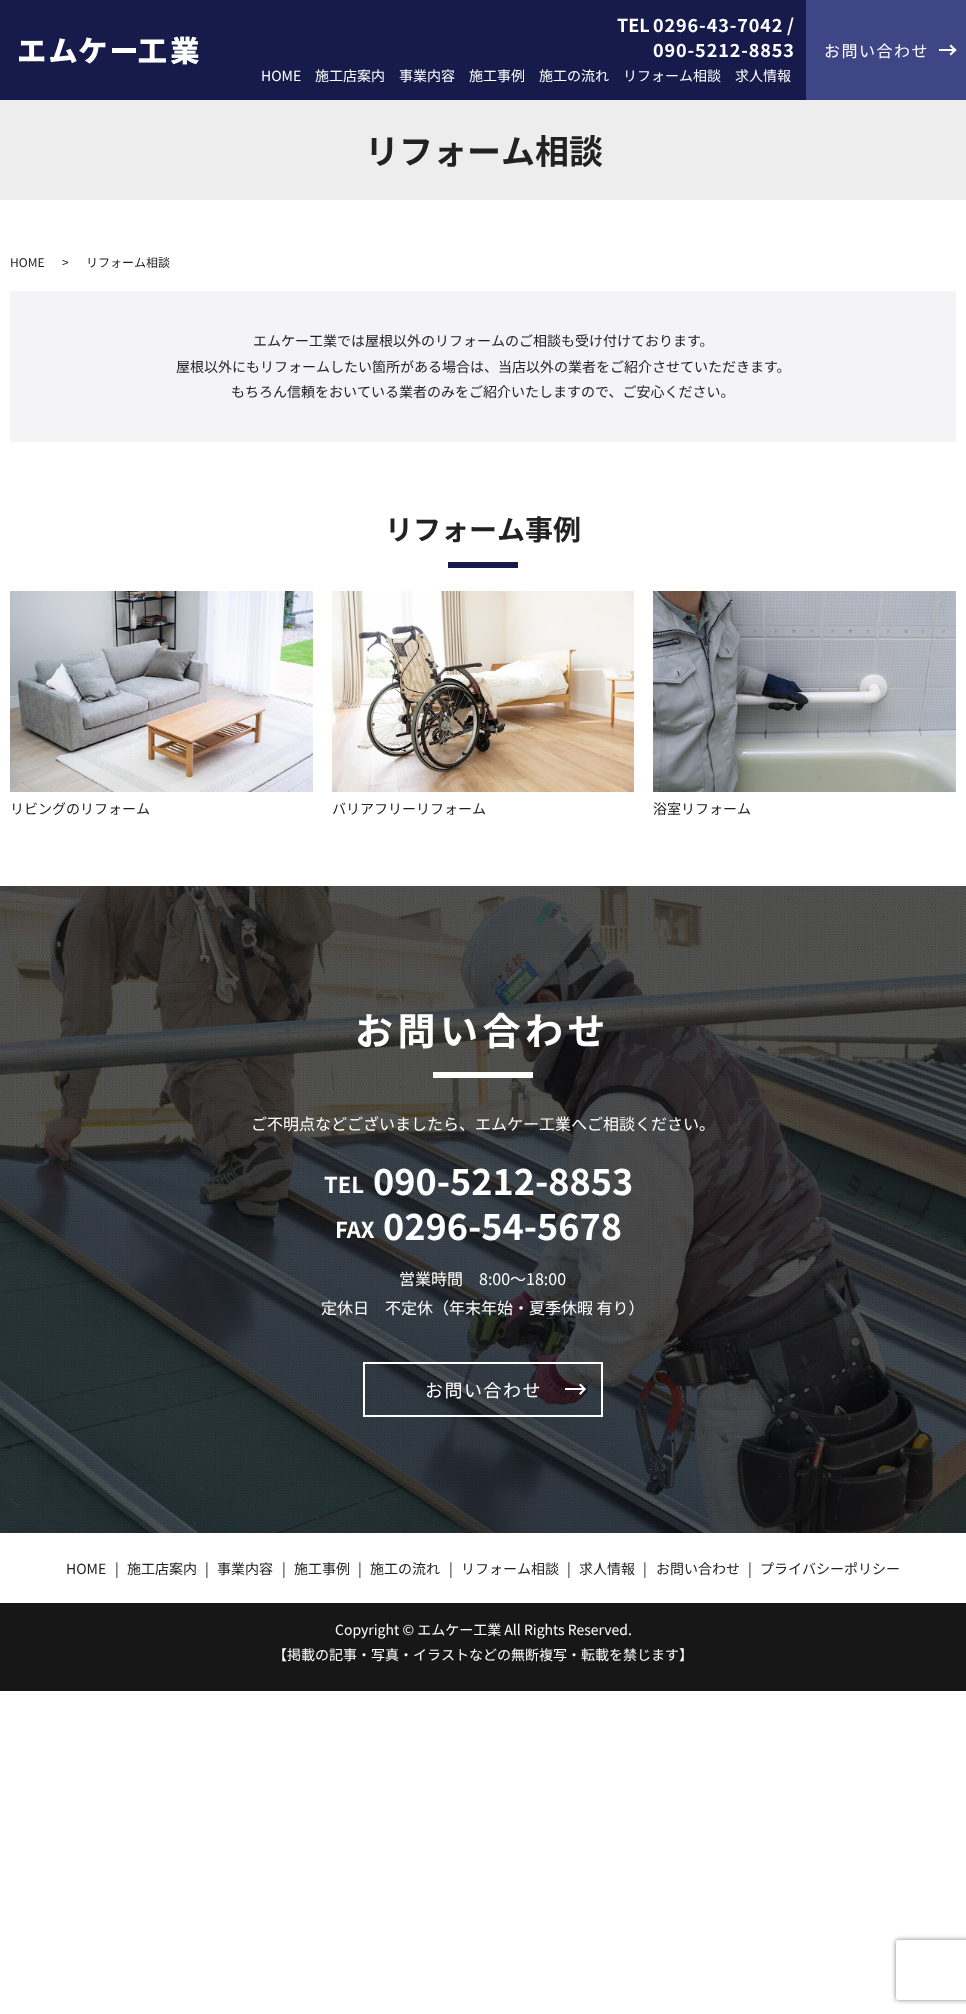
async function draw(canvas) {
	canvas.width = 966;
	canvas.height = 2014;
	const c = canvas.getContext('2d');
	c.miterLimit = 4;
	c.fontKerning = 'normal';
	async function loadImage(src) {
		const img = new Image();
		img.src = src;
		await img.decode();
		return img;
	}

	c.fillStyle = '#fff';
	c.fillRect(0, 0, 966, 2014);
	c.fillStyle = '#161b4b';
	c.fillRect(0, 0, 806, 100);
	c.drawImage(await loadImage('img1.png'), 19, 36, 180, 29);
	c.font = 'bold 18px Noto Sans JP';
	c.fillStyle = '#fff';
	c.fillText('TEL', 617, 32);
	c.letterSpacing = '0.9px';
	c.fillText('0296-43-7042', 653, 32);
	c.letterSpacing = '0px';
	c.fillText('/', 787, 32);
	c.letterSpacing = '0.9px';
	c.fillText('090-5212-8853', 653, 57);
	c.fillStyle = '#3f4686';
	c.fillRect(806, 0, 160, 100);
	c.letterSpacing = '1.5px';
	c.font = '16px Noto Sans JP';
	c.fillStyle = '#fff';
	c.fillText('お問い合わせ', 824, 57);
	c.fillRect(939, 49, 16, 2);
	c.beginPath();
	c.moveTo(951, 44.5);
	c.lineTo(956.5, 50);
	c.lineTo(955, 51.5);
	c.lineTo(949.5, 46);
	c.closePath();
	c.fill();
	c.beginPath();
	c.moveTo(955, 48.5);
	c.lineTo(956.5, 50);
	c.lineTo(951, 55.5);
	c.lineTo(949.5, 54);
	c.closePath();
	c.fill();
	c.letterSpacing = '0px';
	c.font = '14px Noto Sans JP';
	for (const [text, x, y] of [
		['HOME', 261, 81],
		['施工店案内', 315, 81],
		['事業内容', 399, 81],
		['施工事例', 469, 81],
		['施工の流れ', 539, 81],
		['リフォーム相談', 623, 81],
		['求人情報', 735, 81],
	]) {
		c.fillText(text, x, y);
	}
	c.fillStyle = '#ededed';
	c.fillRect(0, 100, 966, 100);
	c.font = 'bold 34px Noto Sans JP';
	c.fillStyle = '#222';
	c.fillText('リフォーム相談', 365, 164);
	c.font = '12px Noto Sans JP';
	for (const [text, x, y] of [
		['HOME', 10, 267],
		['>', 62, 267],
		['リフォーム相談', 86, 267],
	]) {
		c.fillText(text, x, y);
	}
	c.fillStyle = '#f4f4f7';
	c.fillRect(10, 291, 946, 151);
	c.font = '14px Noto Sans JP';
	c.fillStyle = '#222';
	for (const [text, x, y] of [
		['エムケー工業では屋根以外のリフォームのご相談も受け付けております。', 253, 346],
		['屋根以外にもリフォームしたい箇所がある場合は、当店以外の業者をご紹介させていただきます。', 176, 372],
		['もちろん信頼をおいている業者のみをご紹介いたしますので、ご安心ください。', 231, 397],
	]) {
		c.fillText(text, x, y);
	}
	c.font = 'bold 28px Noto Sans JP';
	c.fillText('リフォーム事例', 385, 540);
	c.fillStyle = '#161b4b';
	c.fillRect(448, 562, 70, 6);
	c.drawImage(await loadImage('img2.png'), 10, 591, 303, 201);
	c.font = '14px Noto Sans JP';
	c.fillStyle = '#222';
	c.fillText('リビングのリフォーム', 10, 814);
	c.drawImage(await loadImage('img3.png'), 332, 591, 302, 201);
	c.fillText('バリアフリーリフォーム', 332, 814);
	c.drawImage(await loadImage('img4.png'), 653, 591, 303, 201);
	c.fillText('浴室リフォーム', 653, 814);
	c.drawImage(await loadImage('img5.png'), 0, 886, 966, 647);
	c.letterSpacing = '4.5px';
	c.font = 'bold 38px Noto Sans JP';
	c.fillStyle = '#fff';
	c.fillText('お問い合わせ', 355, 1045);
	c.fillRect(433, 1072, 100, 6);
	c.letterSpacing = '0px';
	c.font = '16px Noto Sans JP';
	c.fillText('ご不明点などございましたら、エムケー工業へご相談ください。', 251, 1130);
	c.font = 'bold 22px Noto Sans JP';
	c.fillText('TEL', 324, 1193);
	c.font = 'bold 36px Noto Sans JP';
	c.fillText('090-5212-8853', 373, 1195);
	c.font = 'bold 22px Noto Sans JP';
	c.fillText('FAX', 335, 1238);
	c.font = 'bold 36px Noto Sans JP';
	c.fillText('0296-54-5678', 383, 1240);
	c.font = '16px Noto Sans JP';
	c.fillText('営業時間　8:00～18:00', 399, 1285);
	c.fillText('定休日　不定休（年末年始・夏季休暇 有り）', 321, 1314);
	c.strokeStyle = '#fff';
	c.lineWidth = 2;
	c.strokeRect(364, 1363, 238, 53);
	c.letterSpacing = '1.5px';
	c.font = '18px Noto Sans JP';
	c.fillText('お問い合わせ', 425, 1397);
	c.fillRect(565, 1388, 19, 2);
	c.beginPath();
	c.moveTo(580.5, 1383.5);
	c.lineTo(586, 1389);
	c.lineTo(584.5, 1390.5);
	c.lineTo(579, 1385);
	c.closePath();
	c.fill();
	c.beginPath();
	c.moveTo(584.5, 1388);
	c.lineTo(586, 1389);
	c.lineTo(580.5, 1395);
	c.lineTo(579, 1393.5);
	c.closePath();
	c.fill();
	c.letterSpacing = '0px';
	c.font = '14px Noto Sans JP';
	c.fillStyle = '#222';
	for (const [text, x, y] of [
		['HOME', 66, 1574],
		['|', 115, 1574],
		['施工店案内', 127, 1574],
		['|', 205, 1574],
		['事業内容', 217, 1574],
		['|', 282, 1574],
		['施工事例', 294, 1574],
		['|', 358, 1574],
		['施工の流れ', 370, 1574],
		['|', 449, 1574],
		['リフォーム相談', 461, 1574],
		['|', 567, 1574],
		['求人情報', 579, 1574],
		['|', 643, 1574],
		['お問い合わせ', 656, 1574],
		['|', 748, 1574],
		['プライバシーポリシー', 760, 1574],
	]) {
		c.fillText(text, x, y);
	}
	c.fillStyle = '#171717';
	c.fillRect(0, 1603, 966, 88);
	c.fillStyle = '#fff';
	c.fillText('Copyright © エムケー工業 All Rights Reserved.', 335, 1635);
	c.fillText('【掲載の記事・写真・イラストなどの無断複写・転載を禁じます】', 273, 1660);
	c.save();
	c.beginPath();
	c.moveTo(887, 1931);
	c.lineTo(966, 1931);
	c.lineTo(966, 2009);
	c.lineTo(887, 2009);
	c.closePath();
	c.moveTo(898, 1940);
	c.lineTo(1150, 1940);
	c.bezierCurveTo(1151, 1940, 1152, 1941, 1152, 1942);
	c.lineTo(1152, 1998);
	c.bezierCurveTo(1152, 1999, 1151, 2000, 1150, 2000);
	c.lineTo(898, 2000);
	c.bezierCurveTo(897, 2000, 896, 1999, 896, 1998);
	c.lineTo(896, 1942);
	c.bezierCurveTo(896, 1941, 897, 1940, 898, 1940);
	c.closePath();
	c.clip('evenodd');
	c.fillStyle = '#808080';
	c.filter = 'blur(2.5px)';
	c.beginPath();
	c.roundRect(896, 1940, 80, 60, 2);
	c.fill();
	c.filter = 'none';
	c.restore();
}

draw(document.querySelector('canvas'));
